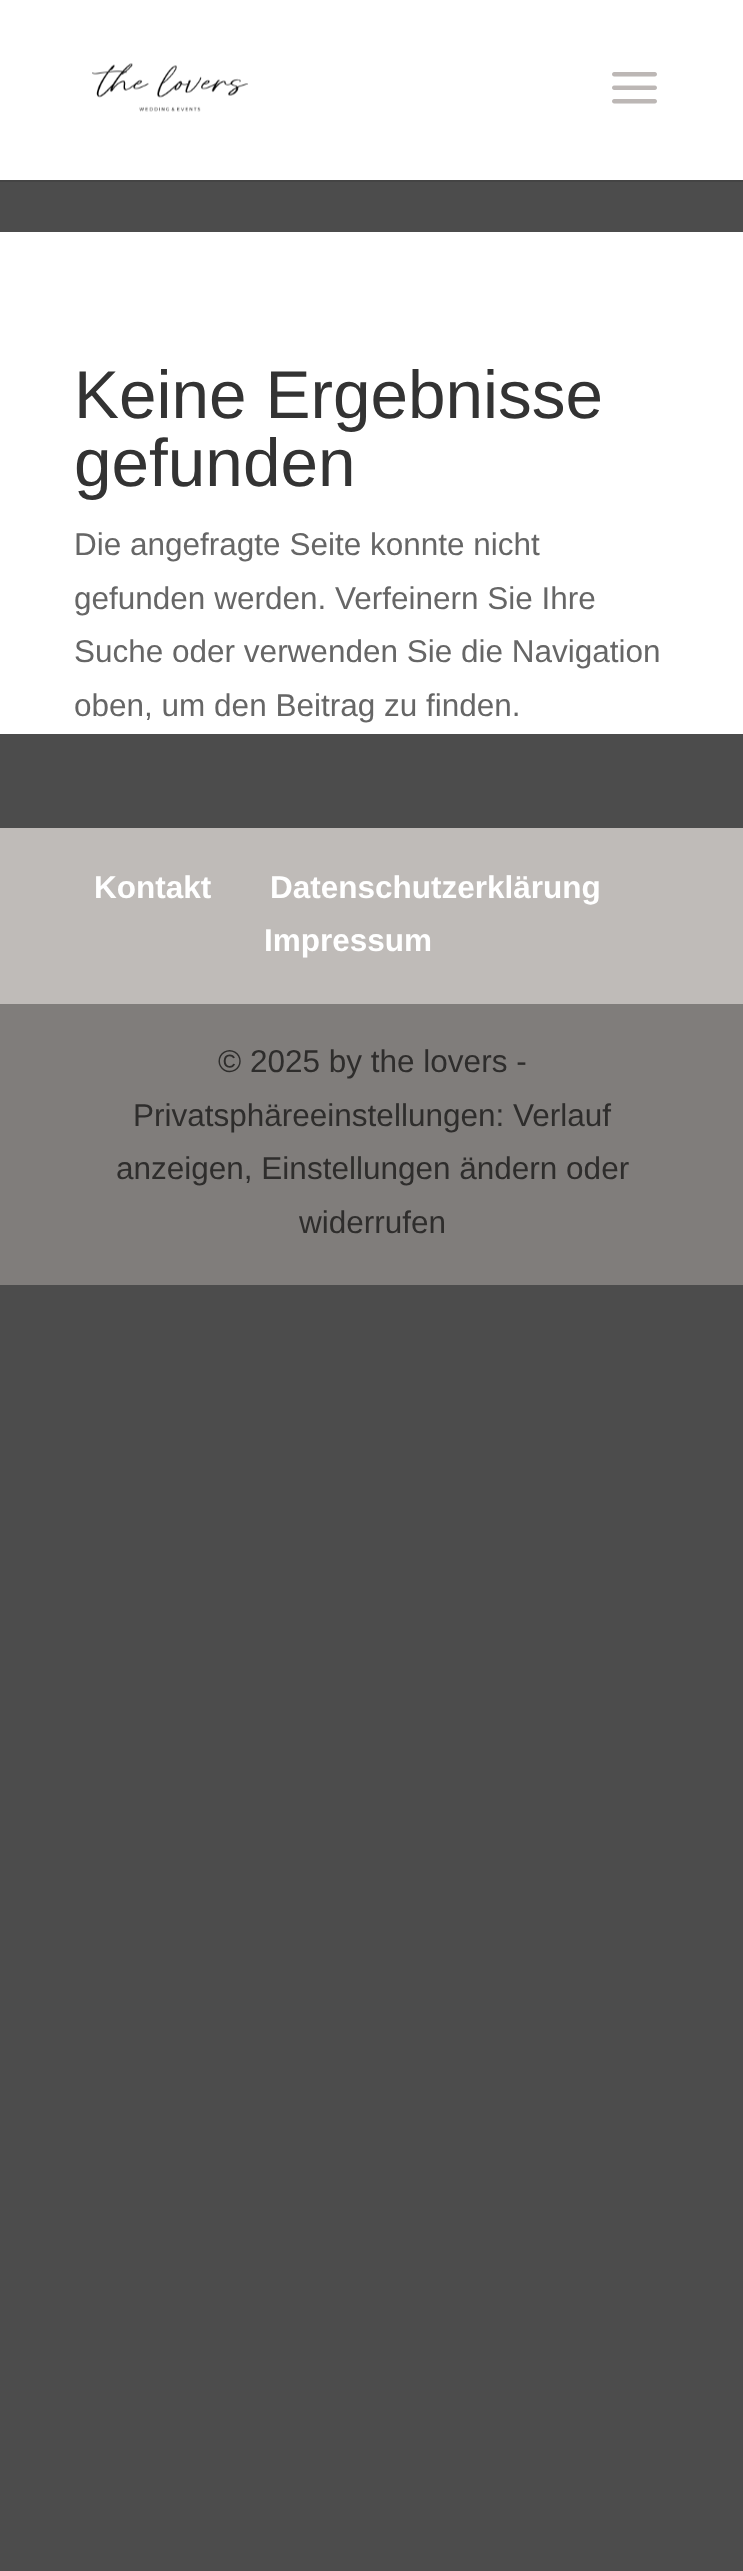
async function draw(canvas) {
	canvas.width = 743;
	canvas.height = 2571;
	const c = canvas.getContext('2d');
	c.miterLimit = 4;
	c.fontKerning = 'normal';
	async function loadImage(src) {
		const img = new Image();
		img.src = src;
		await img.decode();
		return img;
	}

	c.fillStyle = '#4c4c4c';
	c.fillRect(0, 0, 743, 2571);
	c.fillStyle = '#444';
	c.beginPath();
	c.moveTo(0, 180);
	c.lineTo(0, 182);
	c.lineTo(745, 182);
	c.lineTo(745, 2);
	c.lineTo(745, 180);
	c.closePath();
	c.fill();
	c.fillStyle = '#fff';
	c.fillRect(0, 0, 743, 180);
	c.drawImage(await loadImage('img1.png'), 92, 63, 156, 49);
	c.drawImage(await loadImage('img2.png'), 612, 72, 45, 32);
	c.fillRect(0, 232, 743, 502);
	c.font = '67.5px Liberation Sans';
	c.fillStyle = '#333';
	c.fillText('Keine Ergebnisse', 74, 418);
	c.fillText('gefunden', 74, 486);
	c.font = '31.5px Liberation Sans';
	c.fillStyle = '#666';
	for (const [text, x, y] of [
		['Die angefragte Seite konnte nicht', 74, 555],
		['gefunden werden. Verfeinern Sie Ihre', 74, 609],
		['Suche oder verwenden Sie die Navigation', 74, 662],
		['oben, um den Beitrag zu finden.', 74, 716],
	]) {
		c.fillText(text, x, y);
	}
	c.fillStyle = '#bfbbb8';
	c.fillRect(0, 828, 743, 176);
	c.font = 'bold 31.5px Liberation Sans';
	c.fillStyle = '#fff';
	for (const [text, x, y] of [
		['Kontakt', 94, 898],
		['Datenschutzerklärung', 270, 898],
		['Impressum', 264, 951],
	]) {
		c.fillText(text, x, y);
	}
	c.fillStyle = '#807d7b';
	c.fillRect(0, 1004, 743, 281);
	c.font = '31.5px Liberation Sans';
	c.fillStyle = '#2e2d2c';
	for (const [text, x, y] of [
		['© 2025 by the lovers -', 218, 1072],
		['Privatsphäreeinstellungen: Verlauf', 133, 1126],
		['anzeigen, Einstellungen ändern oder', 116, 1179],
		['widerrufen', 299, 1233],
	]) {
		c.fillText(text, x, y);
	}
}

draw(document.querySelector('canvas'));
